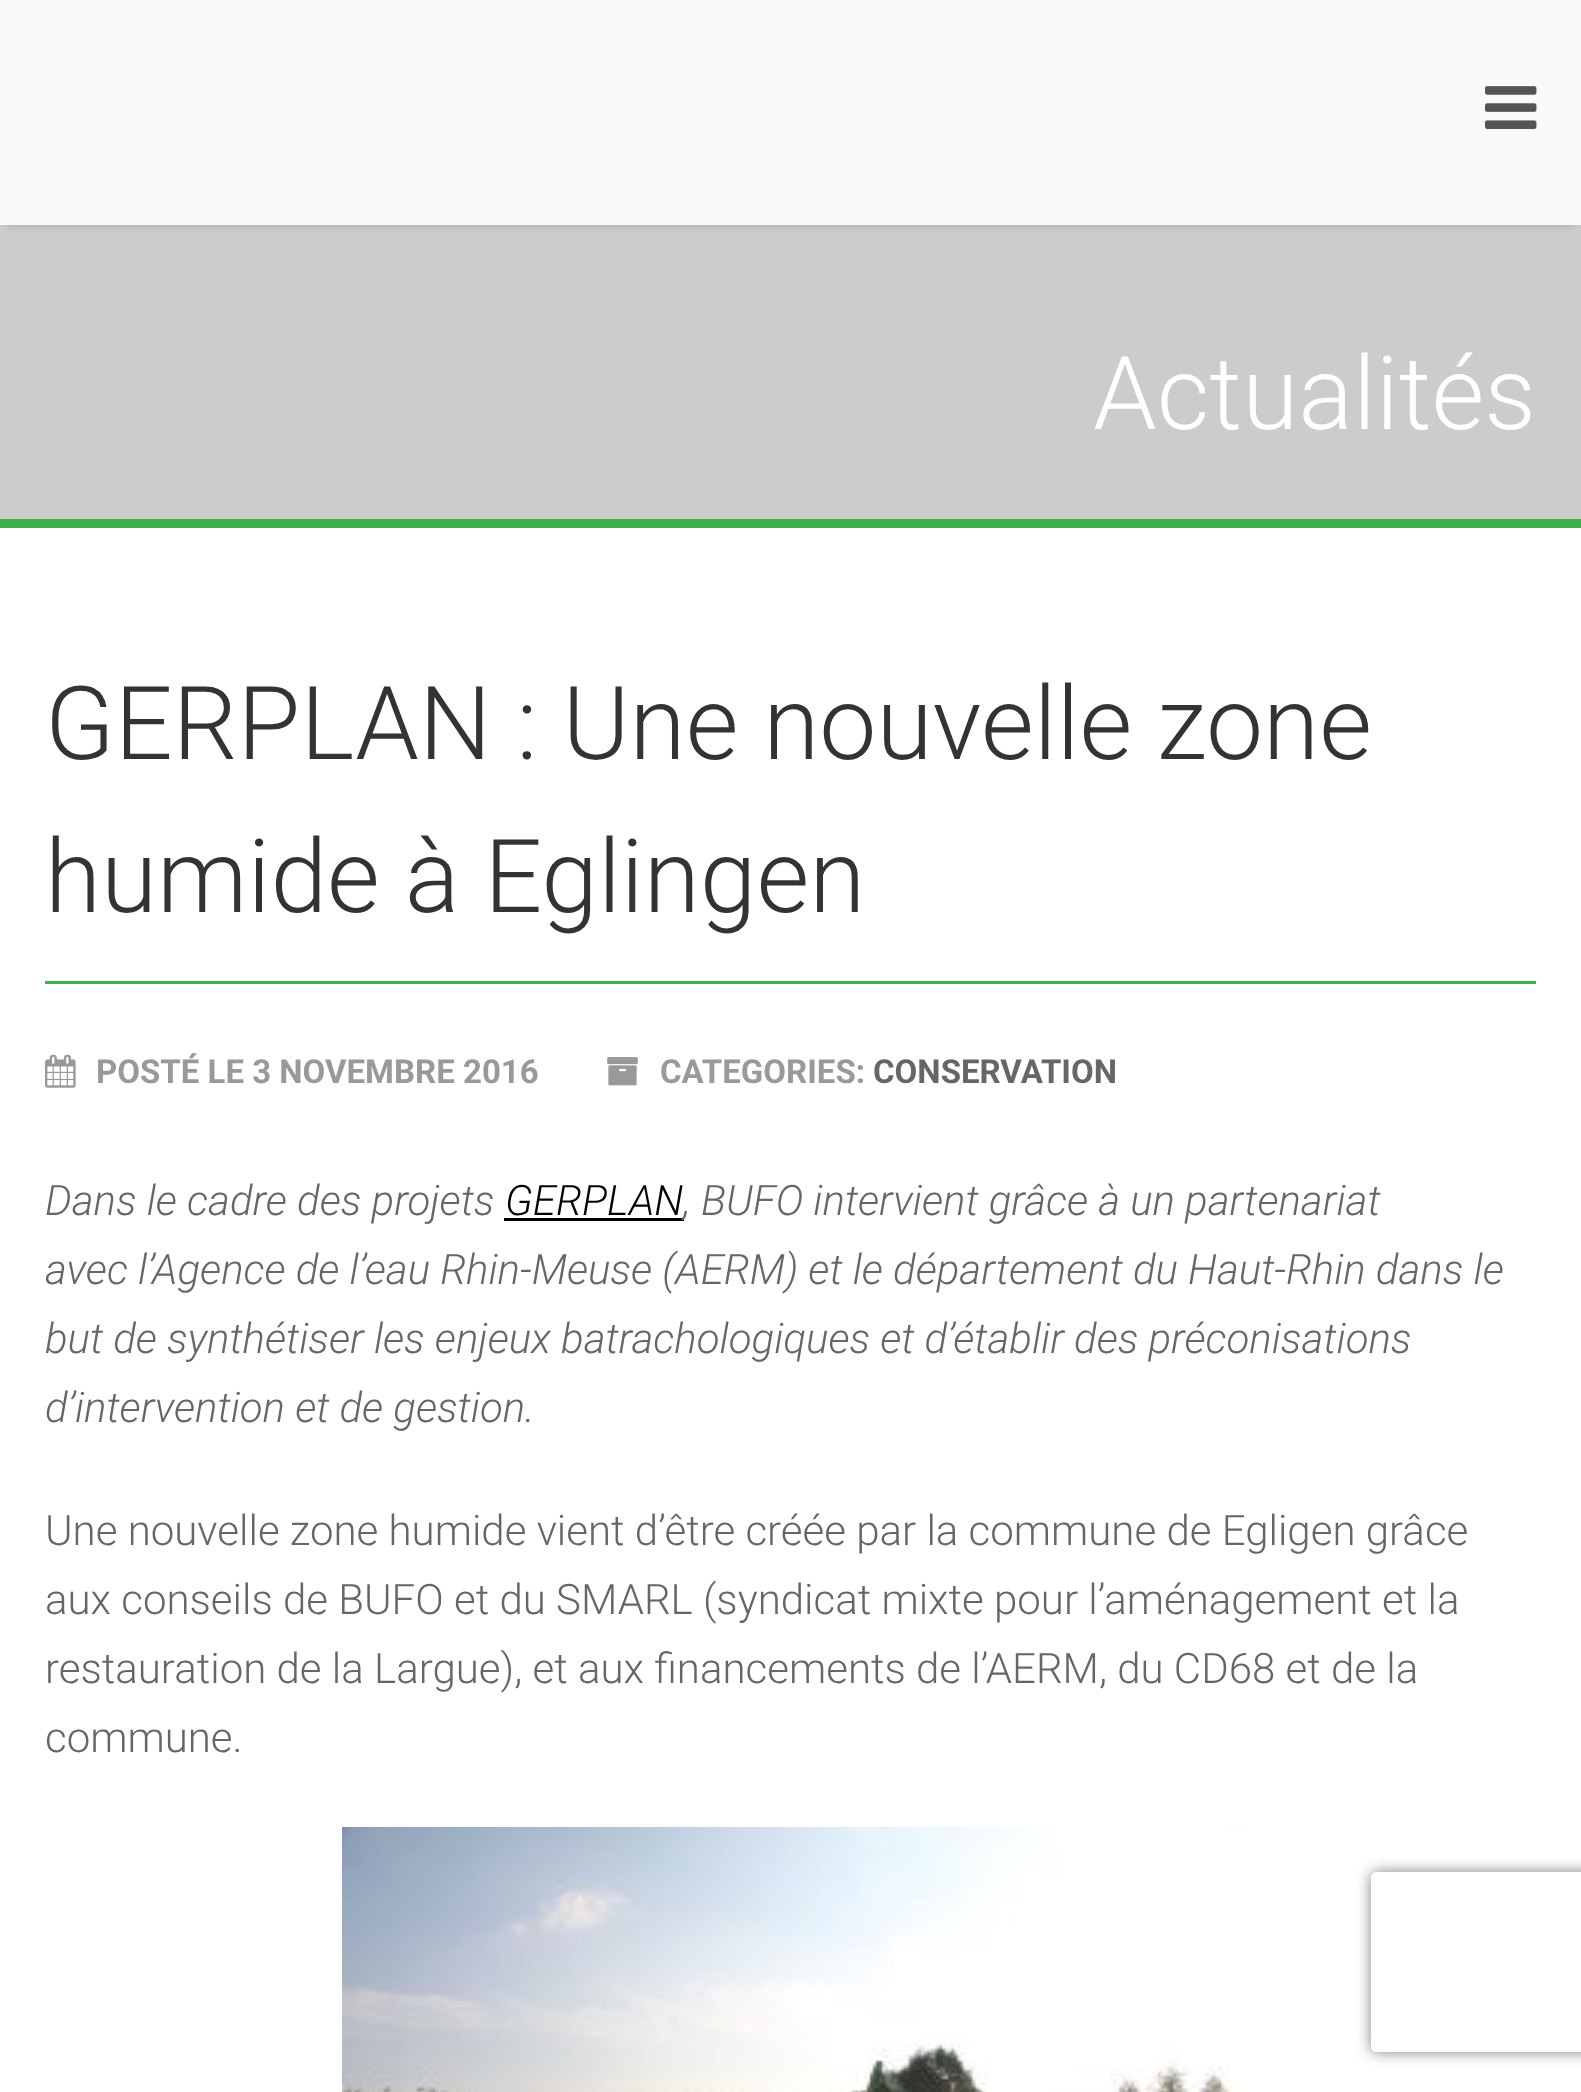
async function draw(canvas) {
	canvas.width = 1581;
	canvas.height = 2092;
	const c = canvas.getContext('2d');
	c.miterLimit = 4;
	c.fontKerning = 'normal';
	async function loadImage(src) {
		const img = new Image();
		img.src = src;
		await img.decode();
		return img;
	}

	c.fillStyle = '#fff';
	c.fillRect(0, 0, 1581, 2092);
	c.fillStyle = '#ccc';
	c.fillRect(0, 0, 1581, 519);
	c.save();
	c.beginPath();
	c.moveTo(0, 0);
	c.lineTo(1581, 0);
	c.lineTo(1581, 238);
	c.lineTo(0, 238);
	c.closePath();
	c.moveTo(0, 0);
	c.lineTo(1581, 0);
	c.lineTo(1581, 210);
	c.bezierCurveTo(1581, 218.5, 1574.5, 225, 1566, 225);
	c.lineTo(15, 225);
	c.bezierCurveTo(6.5, 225, 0, 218.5, 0, 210);
	c.closePath();
	c.clip('evenodd');
	c.fillStyle = '#0000001a';
	c.filter = 'blur(3px)';
	c.beginPath();
	c.roundRect(0, 3, 1581, 225, 15);
	c.fill();
	c.filter = 'none';
	c.restore();
	c.fillStyle = '#ffffffe6';
	c.fillRect(0, 0, 1581, 225);
	c.drawImage(await loadImage('img1.png'), 1485, 86, 52, 43);
	c.fillStyle = '#40af49';
	c.fillRect(0, 519, 1581, 9);
	c.font = '300 102px Roboto';
	c.fillStyle = '#fff';
	c.fillText('Actualités', 1093, 429);
	c.fillStyle = '#40af49';
	c.fillRect(45, 981, 1491, 3);
	c.fillStyle = '#333';
	c.fillText('GERPLAN : Une nouvelle zone', 45, 759);
	c.fillText('humide à Eglingen', 45, 912);
	c.drawImage(await loadImage('img2.png'), 45, 1054, 31, 34);
	c.font = 'bold 33px Roboto';
	c.fillStyle = '#999';
	c.fillText('POSTÉ LE 3 NOVEMBRE 2016', 96, 1083);
	c.drawImage(await loadImage('img3.png'), 607, 1057, 31, 29);
	c.fillText('CATEGORIES:', 660, 1083);
	c.fillStyle = '#666';
	c.fillText('CONSERVATION', 873, 1083);
	c.font = 'italic 300 42px Roboto';
	c.fillText('Dans le cadre des projets', 45, 1215);
	c.fillStyle = '#000';
	c.fillText('GERPLAN', 505, 1215);
	c.fillRect(504, 1218, 180, 3);
	c.fillStyle = '#666';
	for (const [text, x, y] of [
		[', BUFO intervient grâce à un partenariat', 683, 1215],
		['avec l’Agence de l’eau Rhin-Meuse (AERM) et le département du Haut-Rhin dans le', 45, 1284],
		['but de synthétiser les enjeux batrachologiques et d’établir des préconisations', 45, 1353],
		['d’intervention et de gestion.', 45, 1422],
	]) {
		c.fillText(text, x, y);
	}
	c.font = '300 42px Roboto';
	for (const [text, x, y] of [
		['Une nouvelle zone humide vient d’être créée par la commune de Egligen grâce', 45, 1545],
		['aux conseils de BUFO et du SMARL (syndicat mixte pour l’aménagement et la', 45, 1614],
		['restauration de la Largue), et aux financements de l’AERM, du CD68 et de la', 45, 1683],
		['commune.', 45, 1752],
	]) {
		c.fillText(text, x, y);
	}
	c.drawImage(await loadImage('img4.png'), 342, 1827, 900, 265);
	c.save();
	c.beginPath();
	c.moveTo(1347, 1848);
	c.lineTo(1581, 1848);
	c.lineTo(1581, 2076);
	c.lineTo(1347, 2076);
	c.closePath();
	c.moveTo(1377, 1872);
	c.lineTo(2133, 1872);
	c.bezierCurveTo(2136.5, 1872, 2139, 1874.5, 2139, 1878);
	c.lineTo(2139, 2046);
	c.bezierCurveTo(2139, 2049.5, 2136.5, 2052, 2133, 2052);
	c.lineTo(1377, 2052);
	c.bezierCurveTo(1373.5, 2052, 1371, 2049.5, 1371, 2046);
	c.lineTo(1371, 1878);
	c.bezierCurveTo(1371, 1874.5, 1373.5, 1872, 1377, 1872);
	c.closePath();
	c.clip('evenodd');
	c.fillStyle = '#808080';
	c.filter = 'blur(7.5px)';
	c.beginPath();
	c.roundRect(1371, 1872, 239, 180, 6);
	c.fill();
	c.filter = 'none';
	c.restore();
}

draw(document.querySelector('canvas'));
